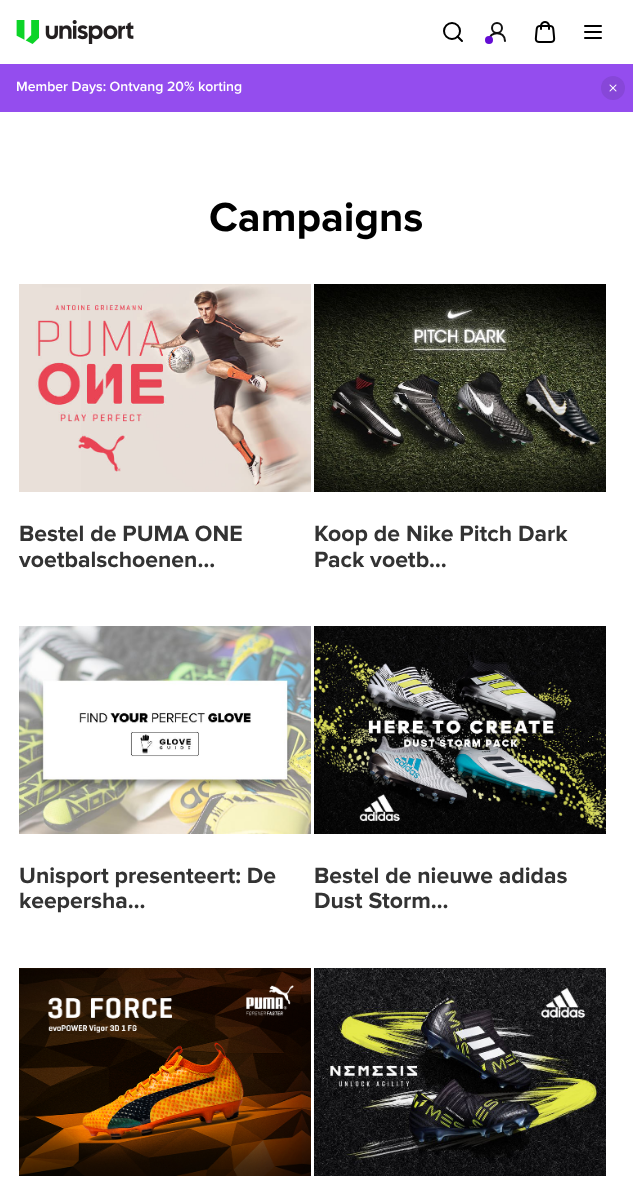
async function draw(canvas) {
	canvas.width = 633;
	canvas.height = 1181;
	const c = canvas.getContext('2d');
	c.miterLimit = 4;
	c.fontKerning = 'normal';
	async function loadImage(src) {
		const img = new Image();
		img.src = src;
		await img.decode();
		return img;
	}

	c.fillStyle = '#fff';
	c.fillRect(0, 0, 633, 1181);
	c.drawImage(await loadImage('img1.png'), 16, 20, 118, 24);
	c.beginPath();
	c.arc(452, 31, 8, 0, 2 * Math.PI);
	c.strokeStyle = '#000';
	c.lineWidth = 2;
	c.stroke();
	c.beginPath();
	c.moveTo(462, 41);
	c.lineTo(457.5, 36.5);
	c.lineCap = 'round';
	c.lineJoin = 'round';
	c.stroke();
	c.beginPath();
	c.arc(497, 28, 5, 0, 2 * Math.PI);
	c.strokeStyle = '#111';
	c.stroke();
	c.beginPath();
	c.moveTo(505, 41);
	c.bezierCurveTo(505, 30.5, 489, 30.5, 489, 41);
	c.stroke();
	c.fillStyle = '#640cd4';
	c.beginPath();
	c.arc(489, 40, 4, 0, 2 * Math.PI);
	c.fill();
	c.drawImage(await loadImage('img2.png'), 534, 21, 22, 22);
	c.drawImage(await loadImage('img3.png'), 584, 25, 18, 14);
	c.fillStyle = '#944dee';
	c.fillRect(0, 64, 633, 48);
	c.font = '600 14px Proxima Nova';
	c.fillStyle = '#fff';
	c.fillText('Member Days: Ontvang 20% korting', 16, 91);
	c.fillStyle = '#8747d8';
	c.beginPath();
	c.arc(613, 88, 12, 0, 2 * Math.PI);
	c.fill();
	c.drawImage(await loadImage('img4.png'), 609, 84, 8, 8);
	c.font = 'bold 42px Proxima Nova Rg';
	c.fillStyle = '#000';
	c.fillText('Campaigns', 209, 231);
	c.drawImage(await loadImage('img5.png'), 19, 284, 292, 208);
	c.font = 'bold 23px Proxima Nova Rg';
	c.fillStyle = '#333';
	c.fillText('Bestel de PUMA ONE', 19, 541);
	c.fillText('voetbalschoenen…', 19, 567);
	c.drawImage(await loadImage('img6.png'), 314, 284, 292, 208);
	c.fillText('Koop de Nike Pitch Dark', 314, 541);
	c.fillText('Pack voetb…', 314, 567);
	c.drawImage(await loadImage('img7.png'), 19, 626, 292, 208);
	c.fillText('Unisport presenteert: De', 19, 883);
	c.fillText('keepersha…', 19, 908);
	c.drawImage(await loadImage('img8.png'), 314, 626, 292, 208);
	c.fillText('Bestel de nieuwe adidas', 314, 883);
	c.fillText('Dust Storm…', 314, 908);
	c.drawImage(await loadImage('img9.png'), 19, 968, 292, 208);
	c.drawImage(await loadImage('img10.png'), 314, 968, 292, 208);
}

draw(document.querySelector('canvas'));
